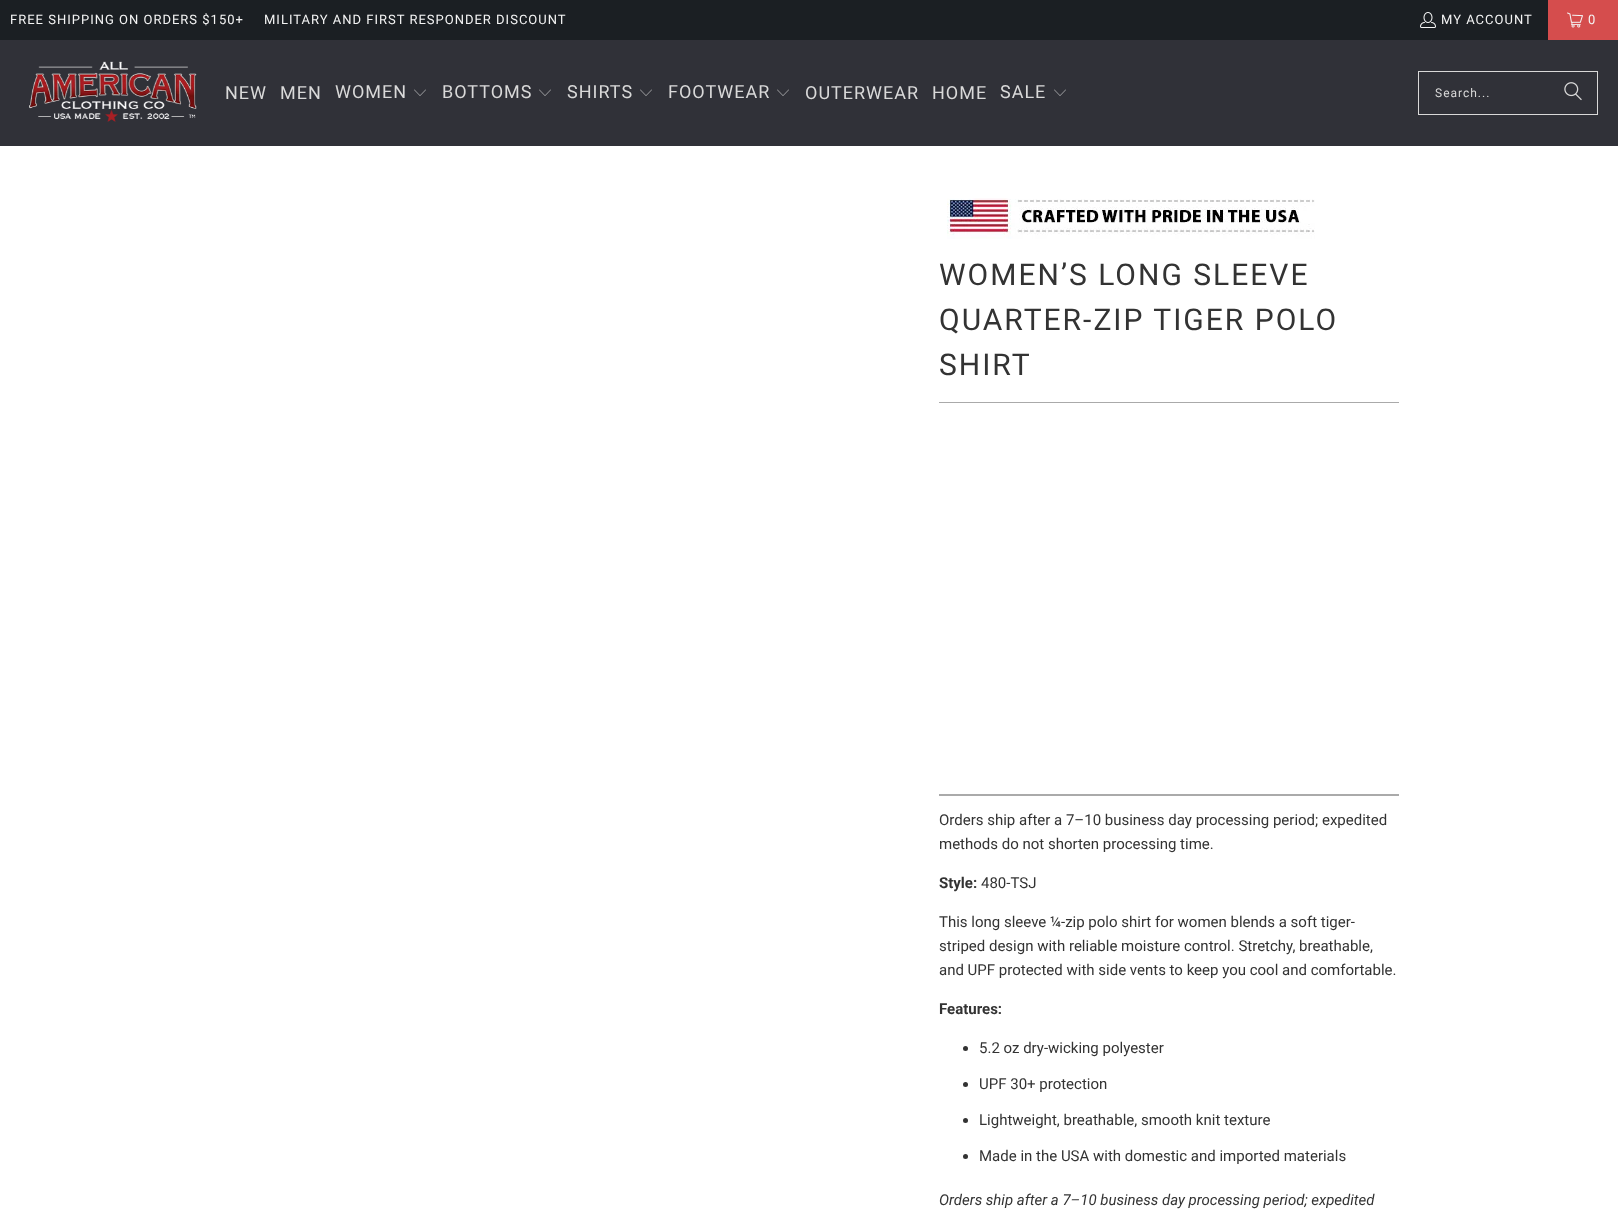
async function draw(canvas) {
	canvas.width = 1618;
	canvas.height = 1223;
	const c = canvas.getContext('2d');
	c.miterLimit = 4;
	c.fontKerning = 'normal';
	async function loadImage(src) {
		const img = new Image();
		img.src = src;
		await img.decode();
		return img;
	}

	c.fillStyle = '#fff';
	c.fillRect(0, 0, 1618, 1223);
	c.fillStyle = '#1b1f23';
	c.fillRect(0, 0, 1548, 40);
	c.letterSpacing = '1px';
	c.font = '13px Roboto';
	c.fillStyle = '#f4f4f4';
	c.fillText('FREE SHIPPING ON ORDERS $150+', 10, 24);
	c.fillText('MILITARY AND FIRST RESPONDER DISCOUNT', 264, 24);
	c.drawImage(await loadImage('img1.png'), 1420, 12, 16, 16);
	c.fillText('MY ACCOUNT', 1441, 24);
	c.fillStyle = '#d54d4d';
	c.fillRect(1548, 0, 70, 40);
	c.drawImage(await loadImage('img2.png'), 1567, 12, 16, 16);
	c.fillStyle = '#f4f4f4';
	c.fillText('0', 1588, 24);
	c.fillStyle = '#303138';
	c.fillRect(0, 40, 1618, 106);
	c.drawImage(await loadImage('img3.png'), 29, 61, 168, 61);
	c.font = '18px Roboto';
	c.fillStyle = '#d9d9d9';
	for (const [text, x, y] of [
		['NEW', 225, 99],
		['MEN', 280, 99],
		['WOMEN', 335, 98],
	]) {
		c.fillText(text, x, y);
	}
	c.drawImage(await loadImage('img4.png'), 414, 89, 12, 7);
	c.fillText('BOTTOMS', 442, 98);
	c.drawImage(await loadImage('img4.png'), 539, 89, 12, 7);
	c.fillText('SHIRTS', 567, 98);
	c.drawImage(await loadImage('img4.png'), 640, 89, 12, 7);
	c.fillText('FOOTWEAR', 668, 98);
	c.drawImage(await loadImage('img4.png'), 777, 89, 12, 7);
	for (const [text, x, y] of [
		['OUTERWEAR', 805, 99],
		['HOME', 932, 99],
		['SALE', 1000, 98],
	]) {
		c.fillText(text, x, y);
	}
	c.drawImage(await loadImage('img4.png'), 1054, 89, 12, 7);
	c.strokeStyle = '#d9d9d9';
	c.strokeRect(1418.5, 71.5, 179, 43);
	c.font = '12px Roboto';
	c.fillText('Search...', 1435, 97);
	c.drawImage(await loadImage('img5.png'), 1564, 82, 18, 19);
	c.drawImage(await loadImage('img6.png'), 947, 198, 368, 41);
	c.letterSpacing = '2px';
	c.font = '30px Roboto';
	c.fillStyle = '#333';
	for (const [text, x, y] of [
		['WOMEN’S LONG SLEEVE', 939, 285],
		['QUARTER-ZIP TIGER POLO', 939, 330],
		['SHIRT', 939, 375],
	]) {
		c.fillText(text, x, y);
	}
	c.fillStyle = '#aaa';
	c.fillRect(939, 402, 460, 1);
	c.fillRect(939, 794, 460, 2);
	c.letterSpacing = '0px';
	c.font = '15px Roboto';
	c.fillStyle = '#333';
	c.fillText('Orders ship after a 7–10 business day processing period; expedited', 939, 825);
	c.fillText('methods do not shorten processing time.', 939, 849);
	c.font = 'bold 15px Roboto';
	c.fillText('Style:', 939, 888);
	c.font = '15px Roboto';
	for (const [text, x, y] of [
		['480-TSJ', 981, 888],
		['This long sleeve ¼-zip polo shirt for women blends a soft tiger-', 939, 927],
		['striped design with reliable moisture control. Stretchy, breathable,', 939, 951],
		['and UPF protected with side vents to keep you cool and comfortable.', 939, 975],
	]) {
		c.fillText(text, x, y);
	}
	c.font = 'bold 15px Roboto';
	c.fillText('Features:', 939, 1014);
	c.beginPath();
	c.arc(965.5, 1048.5, 2.5, 0, 2 * Math.PI);
	c.fill();
	c.font = '15px Roboto';
	c.fillText('5.2 oz dry-wicking polyester', 979, 1053);
	c.beginPath();
	c.arc(965.5, 1084.5, 2.5, 0, 2 * Math.PI);
	c.fill();
	c.fillText('UPF 30+ protection', 979, 1089);
	c.beginPath();
	c.arc(965.5, 1120.5, 2.5, 0, 2 * Math.PI);
	c.fill();
	c.fillText('Lightweight, breathable, smooth knit texture', 979, 1125);
	c.beginPath();
	c.arc(965.5, 1156.5, 2.5, 0, 2 * Math.PI);
	c.fill();
	c.fillText('Made in the USA with domestic and imported materials', 979, 1161);
	c.font = 'italic 15px Roboto';
	c.fillText('Orders ship after a 7–10 business day processing period; expedited', 939, 1205);
}

draw(document.querySelector('canvas'));
